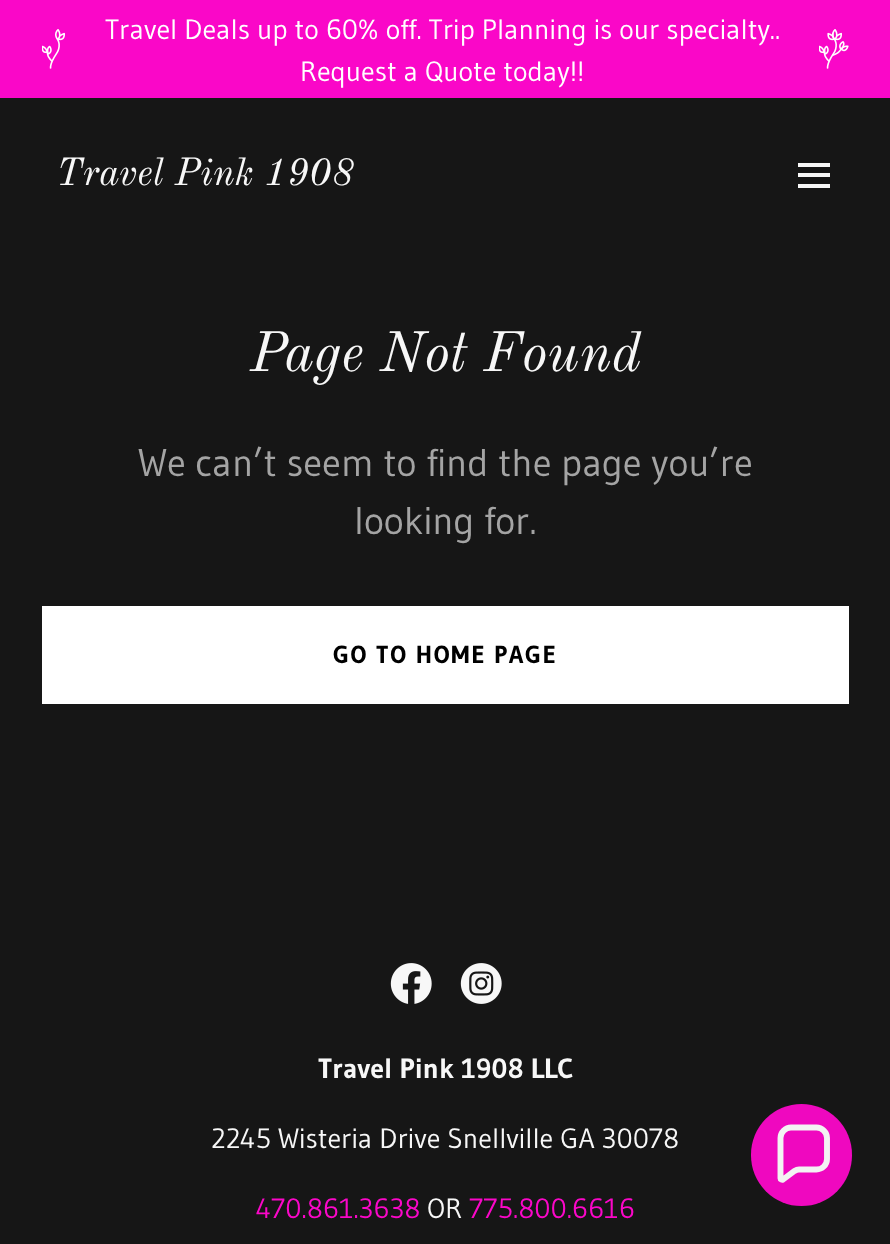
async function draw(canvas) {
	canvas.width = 890;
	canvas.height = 1244;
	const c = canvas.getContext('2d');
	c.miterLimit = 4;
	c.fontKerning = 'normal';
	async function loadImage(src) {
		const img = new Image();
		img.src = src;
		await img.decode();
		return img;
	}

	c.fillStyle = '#161616';
	c.fillRect(0, 0, 890, 1244);
	c.fillStyle = '#fa07c8';
	c.fillRect(0, 0, 890, 98);
	c.drawImage(await loadImage('img1.png'), 42, 29, 23, 40);
	c.font = '28px Gudea';
	c.fillStyle = '#fff';
	c.fillText('Travel Deals up to 60% off. Trip Planning is our specialty..', 105, 39);
	c.fillText('Request a Quote today!!', 300, 81);
	c.drawImage(await loadImage('img2.png'), 819, 29, 30, 40);
	c.font = 'italic 38.5px Old Standard TT';
	c.fillStyle = '#f7f7f7';
	c.fillText('Travel Pink 1908', 56, 185);
	for (const [x, y, w, h, color] of [
		[798, 163, 32, 4, '#f7f7f7'],
		[798, 173, 32, 4, '#f7f7f7'],
		[798, 184, 32, 4, '#f7f7f7'],
	]) {
		c.fillStyle = color;
		c.fillRect(x, y, w, h);
	}
	c.font = 'italic 56px Old Standard TT';
	c.fillText('Page Not Found', 250, 371);
	c.font = '38.5px Gudea';
	c.fillStyle = '#a4a4a4';
	c.fillText('We can’t seem to find the page you’re', 138, 476);
	c.fillText('looking for.', 354, 534);
	c.fillStyle = '#fff';
	c.fillRect(42, 606, 807, 98);
	c.letterSpacing = '1.75px';
	c.font = 'bold 24.5px Gudea';
	c.fillStyle = '#000';
	c.fillText('GO TO HOME PAGE', 333, 663);
	c.drawImage(await loadImage('img3.png'), 390, 963, 42, 41);
	c.drawImage(await loadImage('img4.png'), 460, 963, 42, 41);
	c.letterSpacing = '0px';
	c.font = 'bold 28px Gudea';
	c.fillStyle = '#f7f7f7';
	c.fillText('Travel Pink 1908 LLC', 318, 1078);
	c.font = '28px Gudea';
	c.fillText('2245 Wisteria Drive Snellville GA 30078', 211, 1148);
	c.fillStyle = '#fa07c8';
	c.fillText('470.861.3638', 256, 1218);
	c.fillStyle = '#f7f7f7';
	c.fillText('OR', 427, 1218);
	c.fillStyle = '#fa07c8';
	c.fillText('775.800.6616', 469, 1218);
	c.fillStyle = '#ef08bf';
	c.beginPath();
	c.roundRect(751, 1104, 101, 102, 50.5);
	c.fill();
	c.beginPath();
	c.moveTo(816.5, 1127.5);
	c.lineTo(791, 1127.5);
	c.bezierCurveTo(785.5, 1127.5, 780.5, 1132.5, 780.5, 1138);
	c.lineTo(780.5, 1178.5);
	c.bezierCurveTo(780.5, 1179.5, 782, 1180, 783, 1179.5);
	c.lineTo(794.5, 1171);
	c.bezierCurveTo(796, 1170, 797.5, 1169.5, 799, 1169.5);
	c.lineTo(816.5, 1169.5);
	c.bezierCurveTo(822, 1169.5, 827, 1165, 827, 1159);
	c.lineTo(827, 1138);
	c.bezierCurveTo(827, 1132.5, 822, 1127.5, 816.5, 1127.5);
	c.closePath();
	c.strokeStyle = '#f3f3f3';
	c.lineWidth = 5.9;
	c.stroke();
}

draw(document.querySelector('canvas'));
